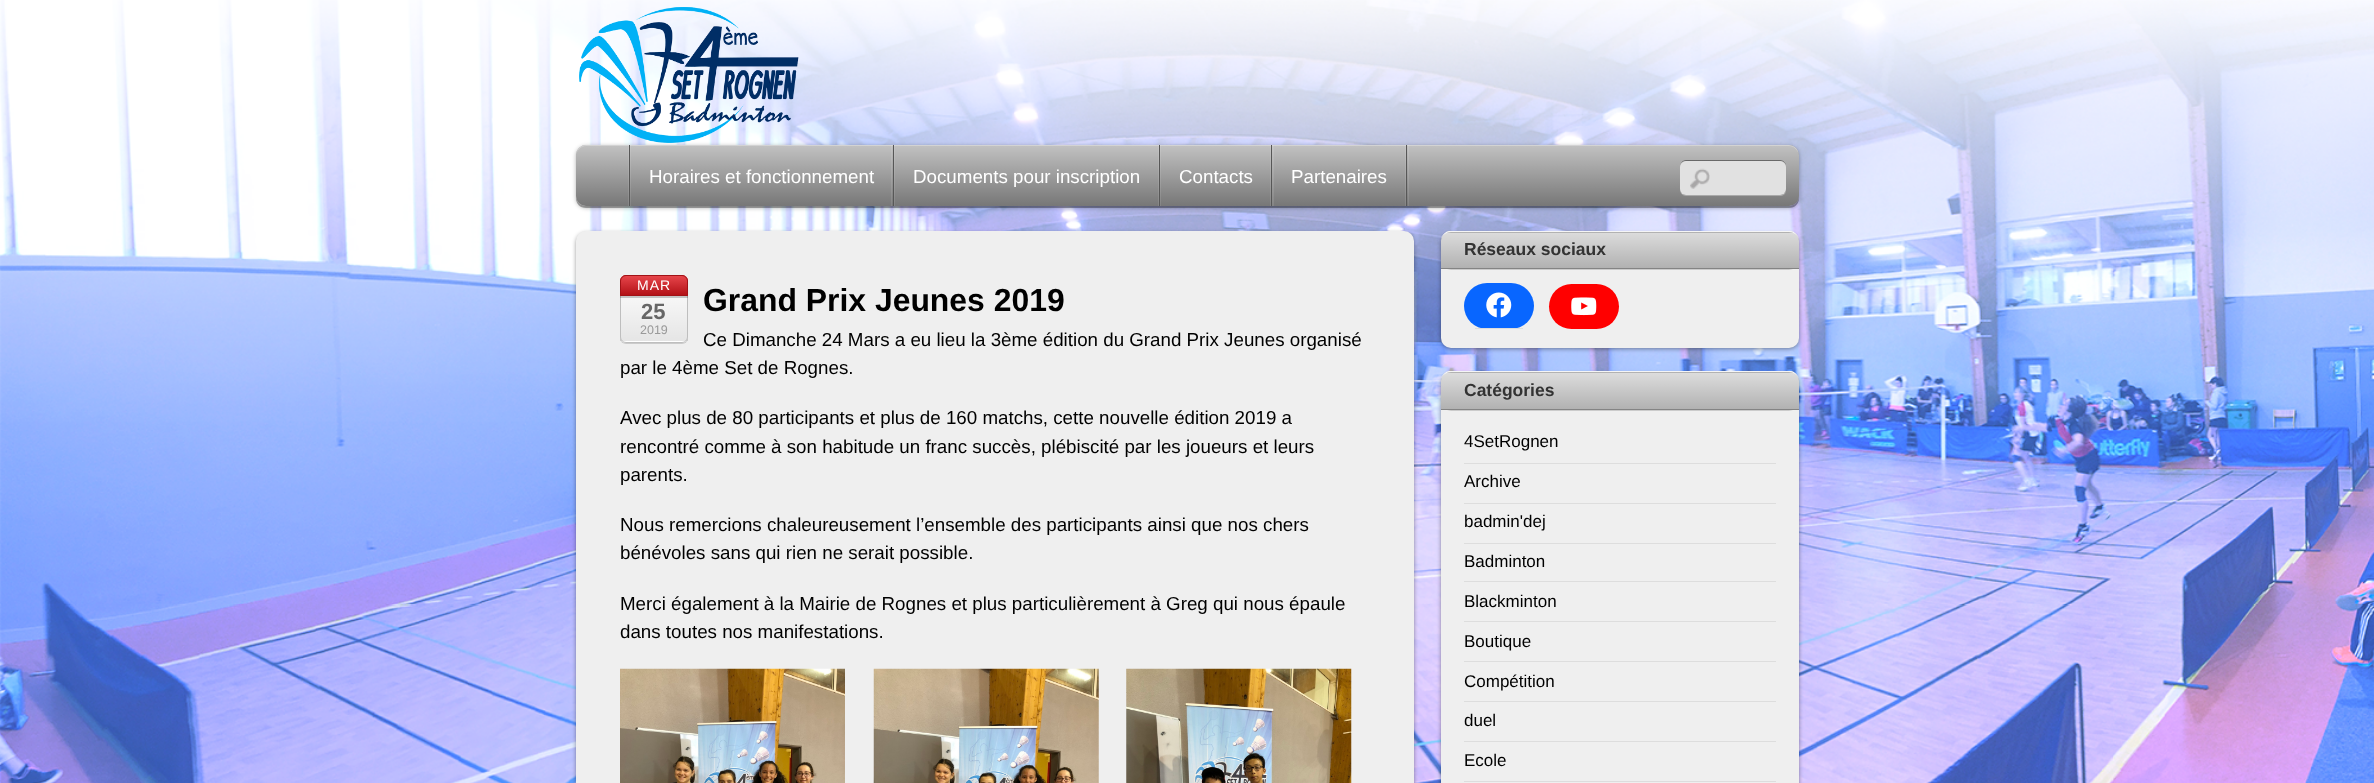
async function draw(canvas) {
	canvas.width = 2374;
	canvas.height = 783;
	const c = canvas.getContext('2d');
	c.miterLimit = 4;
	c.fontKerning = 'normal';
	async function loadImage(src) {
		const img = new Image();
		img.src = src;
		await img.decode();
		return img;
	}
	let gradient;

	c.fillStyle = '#fff';
	c.fillRect(0, 0, 2374, 783);
	c.drawImage(await loadImage('img1.png'), 0, 0, 2374, 783);
	c.drawImage(await loadImage('img2.png'), 579, 7, 220, 136);
	c.fillStyle = '#0000004d';
	c.filter = 'blur(2px)';
	c.beginPath();
	c.roundRect(576, 146, 1223, 62, 10);
	c.fill();
	c.filter = 'none';
	c.beginPath();
	c.moveTo(576, 153);
	c.lineTo(576, 156);
	c.lineTo(576, 198);
	c.bezierCurveTo(576, 204, 580, 208, 586, 208);
	c.lineTo(1789, 208);
	c.bezierCurveTo(1795, 208, 1799, 204, 1799, 198);
	c.lineTo(1799, 156);
	c.lineTo(1799, 153);
	c.lineTo(1799, 196);
	c.bezierCurveTo(1799, 202, 1794, 206, 1789, 206);
	c.lineTo(586, 206);
	c.bezierCurveTo(581, 206, 576, 202, 576, 196);
	c.closePath();
	c.fill();
	c.fillStyle = '#777';
	c.beginPath();
	c.roundRect(576, 145, 1223, 61, 10);
	c.fill();
	gradient = c.createLinearGradient(1188, 145, 1188, 206);
	gradient.addColorStop(0, '#ffffff8c');
	gradient.addColorStop(1, '#ffffff00');
	c.fillStyle = gradient;
	c.beginPath();
	c.roundRect(576, 145, 1223, 61, 10);
	c.fill();
	c.fillStyle = '#ffffff4d';
	c.beginPath();
	c.moveTo(586, 146);
	c.lineTo(1789, 146);
	c.bezierCurveTo(1794, 146, 1799, 151, 1799, 156);
	c.bezierCurveTo(1799, 150, 1795, 145, 1789, 145);
	c.lineTo(586, 145);
	c.bezierCurveTo(580, 145, 576, 150, 576, 156);
	c.bezierCurveTo(576, 151, 581, 146, 586, 146);
	c.closePath();
	c.fill();
	for (const [x, y, w, h, color] of [
		[630, 145, 1, 61, '#ffffff1a'],
		[628, 145, 1, 61, '#ffffff1a'],
		[629, 145, 1, 61, '#575757'],
		[894, 145, 1, 61, '#ffffff1a'],
		[891, 145, 1, 61, '#ffffff1a'],
		[893, 145, 1, 61, '#575757'],
	]) {
		c.fillStyle = color;
		c.fillRect(x, y, w, h);
	}
	c.font = '18.75px Liberation Sans';
	c.fillStyle = '#fff';
	c.fillText('Horaires et fonctionnement', 649, 183);
	for (const [x, y, w, h, color] of [
		[1160, 145, 1, 61, '#ffffff1a'],
		[1158, 145, 1, 61, '#ffffff1a'],
		[1159, 145, 1, 61, '#575757'],
	]) {
		c.fillStyle = color;
		c.fillRect(x, y, w, h);
	}
	c.fillStyle = '#fff';
	c.fillText('Documents pour inscription', 913, 183);
	for (const [x, y, w, h, color] of [
		[1272, 145, 2, 61, '#ffffff1a'],
		[1270, 145, 1, 61, '#ffffff1a'],
		[1271, 145, 1, 61, '#575757'],
	]) {
		c.fillStyle = color;
		c.fillRect(x, y, w, h);
	}
	c.fillStyle = '#fff';
	c.fillText('Contacts', 1179, 183);
	for (const [x, y, w, h, color] of [
		[1408, 145, 1, 61, '#ffffff1a'],
		[1405, 145, 1, 61, '#ffffff1a'],
		[1406, 145, 1, 61, '#575757'],
	]) {
		c.fillStyle = color;
		c.fillRect(x, y, w, h);
	}
	c.fillStyle = '#fff';
	c.fillText('Partenaires', 1291, 183);
	c.fillStyle = '#ffffff4d';
	c.beginPath();
	c.moveTo(1680, 189);
	c.lineTo(1680, 190);
	c.bezierCurveTo(1680, 193, 1683, 196, 1686, 196);
	c.lineTo(1780, 196);
	c.bezierCurveTo(1783, 196, 1786, 194, 1786, 191);
	c.bezierCurveTo(1785, 193, 1783, 195, 1780, 195);
	c.lineTo(1686, 195);
	c.bezierCurveTo(1683, 195, 1680, 192, 1680, 189);
	c.closePath();
	c.fill();
	c.fillStyle = '#00000066';
	c.beginPath();
	c.moveTo(1686, 160);
	c.bezierCurveTo(1682, 160, 1680, 164, 1680, 168);
	c.bezierCurveTo(1680, 164, 1683, 161, 1686, 161);
	c.lineTo(1780, 161);
	c.bezierCurveTo(1783, 161, 1785, 163, 1786, 166);
	c.bezierCurveTo(1786, 163, 1783, 160, 1780, 160);
	c.closePath();
	c.fill();
	c.fillStyle = '#e1e1e1';
	c.beginPath();
	c.roundRect(1680, 161, 106, 34, 6);
	c.fill();
	c.drawImage(await loadImage('img3.png'), 1690, 168, 20, 21);
	c.fillStyle = '#00000066';
	c.filter = 'blur(2px)';
	c.beginPath();
	c.roundRect(576, 233, 838, 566, 10);
	c.fill();
	c.filter = 'none';
	c.fillStyle = '#efefef';
	c.beginPath();
	c.roundRect(576, 231, 838, 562, 10);
	c.fill();
	c.fillStyle = '#00000026';
	c.filter = 'blur(0.5px)';
	c.beginPath();
	c.roundRect(620, 276, 68, 68, 6);
	c.fill();
	c.filter = 'none';
	c.fillStyle = '#fff';
	c.beginPath();
	c.roundRect(620, 275, 68, 68, 6);
	c.fill();
	gradient = c.createLinearGradient(654, 276, 654, 341);
	gradient.addColorStop(0, '#00000000');
	gradient.addColorStop(1, '#0000001a');
	c.fillStyle = gradient;
	c.fillRect(620, 296, 68, 45);
	c.beginPath();
	c.roundRect(620.5, 275.5, 67, 67, 5.5);
	c.strokeStyle = '#bebebe';
	c.stroke();
	c.fillStyle = '#00000033';
	c.beginPath();
	c.moveTo(620, 296);
	c.lineTo(620, 298);
	c.lineTo(688, 298);
	c.bezierCurveTo(688, 294, 689, 282, 687, 278);
	c.bezierCurveTo(689, 282, 688, 292, 688, 296);
	c.closePath();
	c.fill();
	c.fillStyle = '#e0161d';
	c.beginPath();
	c.roundRect(620, 275, 68, 21, [6, 6, 0, 0]);
	c.fill();
	c.save();
	c.beginPath();
	c.roundRect(620, 275, 68, 21, [6, 6, 0, 0]);
	c.clip();
	gradient = c.createLinearGradient(654, 276, 654, 295);
	gradient.addColorStop(0, '#ffffff33');
	gradient.addColorStop(1, '#00000033');
	c.fillStyle = gradient;
	c.fillRect(620, 276, 68, 19);
	c.restore();
	c.beginPath();
	c.roundRect(620.5, 275.5, 67, 20, [5.5, 5.5, 0, 0]);
	c.strokeStyle = '#a11216';
	c.stroke();
	c.letterSpacing = '1px';
	c.font = '14px Liberation Sans';
	c.fillStyle = '#fff';
	c.fillText('MAR', 637, 290);
	c.letterSpacing = '0px';
	c.font = 'bold 22px Liberation Sans';
	c.fillStyle = '#666';
	c.fillText('25', 641, 319);
	c.font = '12.5px Liberation Sans';
	c.fillStyle = '#999';
	c.fillText('2019', 640, 334);
	c.font = 'bold 31.9px Liberation Sans';
	c.fillStyle = '#000';
	c.fillText('Grand Prix Jeunes 2019', 703, 311);
	c.font = '18.75px Liberation Sans';
	for (const [text, x, y] of [
		['Ce Dimanche 24 Mars a eu lieu la 3ème édition du Grand Prix Jeunes organisé', 703, 346],
		['par le 4ème Set de Rognes.', 620, 374],
		['Avec plus de 80 participants et plus de 160 matchs, cette nouvelle édition 2019 a', 620, 424],
		['rencontré comme à son habitude un franc succès, plébiscité par les joueurs et leurs', 620, 453],
		['parents.', 620, 481],
		['Nous remercions chaleureusement l’ensemble des participants ainsi que nos chers', 620, 531],
		['bénévoles sans qui rien ne serait possible.', 620, 559],
		['Merci également à la Mairie de Rognes et plus particulièrement à Greg qui nous épaule', 620, 610],
		['dans toutes nos manifestations.', 620, 638],
	]) {
		c.fillText(text, x, y);
	}
	c.drawImage(await loadImage('img4.png'), 620, 668, 225, 115);
	c.drawImage(await loadImage('img5.png'), 873, 668, 226, 115);
	c.drawImage(await loadImage('img6.png'), 1126, 668, 226, 115);
	c.fillStyle = '#00000066';
	c.filter = 'blur(2px)';
	c.beginPath();
	c.roundRect(1441, 234, 358, 115, 10);
	c.fill();
	c.filter = 'none';
	c.fillStyle = '#efefef';
	c.beginPath();
	c.roundRect(1441, 233, 358, 115, 10);
	c.fill();
	c.fillStyle = '#00000026';
	c.filter = 'blur(0.5px)';
	c.beginPath();
	c.roundRect(1441, 233, 358, 37, 10);
	c.fill();
	c.filter = 'none';
	c.fillStyle = '#a9a9a9';
	c.beginPath();
	c.roundRect(1441, 231, 358, 38, [10, 10, 0, 0]);
	c.fill();
	c.save();
	c.beginPath();
	c.roundRect(1441, 231, 358, 38, [10, 10, 0, 0]);
	c.clip();
	gradient = c.createLinearGradient(1620, 197, 1620, 233);
	gradient.addColorStop(0, '#ffffff99');
	gradient.addColorStop(1, '#ffffff1a');
	c.fillStyle = gradient;
	c.fillRect(1441, 231, 358, 2);
	gradient = c.createLinearGradient(1620, 232, 1620, 268);
	gradient.addColorStop(0, '#ffffff99');
	gradient.addColorStop(1, '#ffffff1a');
	c.fillStyle = gradient;
	c.fillRect(1441, 233, 358, 35);
	c.restore();
	c.fillStyle = '#f5f5f5';
	c.beginPath();
	c.moveTo(1451, 232);
	c.bezierCurveTo(1447, 232, 1442, 235, 1441, 239);
	c.bezierCurveTo(1441, 236, 1446, 231, 1449, 231);
	c.lineTo(1791, 231);
	c.bezierCurveTo(1794, 231, 1799, 236, 1799, 239);
	c.bezierCurveTo(1798, 235, 1793, 232, 1789, 232);
	c.closePath();
	c.fill();
	c.fillStyle = '#848484';
	c.fillRect(1441, 268, 358, 1);
	c.font = 'bold 17.5px Liberation Sans';
	c.fillStyle = '#333';
	c.fillText('Réseaux sociaux', 1464, 255);
	c.fillStyle = '#0866ff';
	c.beginPath();
	c.roundRect(1464, 283, 70, 46, 23);
	c.fill();
	c.fillStyle = '#ddd';
	c.fillRect(1475, 328, 48, 1);
	c.drawImage(await loadImage('img7.png'), 1486, 292, 26, 26);
	c.fillStyle = '#f00';
	c.beginPath();
	c.roundRect(1549, 284, 70, 45, 22.5);
	c.fill();
	c.drawImage(await loadImage('img8.png'), 1571, 297, 26, 19);
	c.fillStyle = '#00000066';
	c.filter = 'blur(2px)';
	c.beginPath();
	c.roundRect(1441, 374, 358, 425, 10);
	c.fill();
	c.filter = 'none';
	c.fillStyle = '#efefef';
	c.beginPath();
	c.roundRect(1441, 373, 358, 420, 10);
	c.fill();
	c.fillStyle = '#00000026';
	c.filter = 'blur(0.5px)';
	c.beginPath();
	c.roundRect(1441, 373, 358, 38, 10);
	c.fill();
	c.filter = 'none';
	c.fillStyle = '#a9a9a9';
	c.beginPath();
	c.roundRect(1441, 371, 358, 39, [10, 10, 0, 0]);
	c.fill();
	c.save();
	c.beginPath();
	c.roundRect(1441, 371, 358, 39, [10, 10, 0, 0]);
	c.clip();
	gradient = c.createLinearGradient(1620, 336, 1620, 373);
	gradient.addColorStop(0, '#ffffff99');
	gradient.addColorStop(1, '#ffffff1a');
	c.fillStyle = gradient;
	c.fillRect(1441, 371, 358, 2);
	gradient = c.createLinearGradient(1620, 373, 1620, 409);
	gradient.addColorStop(0, '#ffffff99');
	gradient.addColorStop(1, '#ffffff1a');
	c.fillStyle = gradient;
	c.fillRect(1441, 373, 358, 36);
	c.restore();
	c.fillStyle = '#f5f5f5';
	c.beginPath();
	c.moveTo(1451, 372);
	c.bezierCurveTo(1447, 372, 1442, 375, 1441, 379);
	c.bezierCurveTo(1441, 376, 1446, 371, 1449, 371);
	c.lineTo(1791, 371);
	c.bezierCurveTo(1794, 371, 1799, 376, 1799, 379);
	c.bezierCurveTo(1798, 375, 1793, 372, 1789, 372);
	c.closePath();
	c.fill();
	c.fillStyle = '#848484';
	c.fillRect(1441, 409, 358, 1);
	c.fillStyle = '#333';
	c.fillText('Catégories', 1464, 396);
	c.fillStyle = '#ddd';
	c.fillRect(1464, 463, 312, 1);
	c.font = '17px Liberation Sans';
	c.fillStyle = '#000';
	c.fillText('4SetRognen', 1464, 447);
	c.fillStyle = '#ddd';
	c.fillRect(1464, 503, 312, 1);
	c.fillStyle = '#000';
	c.fillText('Archive', 1464, 487);
	c.fillStyle = '#ddd';
	c.fillRect(1464, 543, 312, 1);
	c.fillStyle = '#000';
	c.fillText('badmin\'dej', 1464, 527);
	c.fillStyle = '#ddd';
	c.fillRect(1464, 581, 312, 1);
	c.fillStyle = '#000';
	c.fillText('Badminton', 1464, 567);
	c.fillStyle = '#ddd';
	c.fillRect(1464, 621, 312, 1);
	c.fillStyle = '#000';
	c.fillText('Blackminton', 1464, 607);
	c.fillStyle = '#ddd';
	c.fillRect(1464, 661, 312, 1);
	c.fillStyle = '#000';
	c.fillText('Boutique', 1464, 647);
	c.fillStyle = '#ddd';
	c.fillRect(1464, 701, 312, 1);
	c.fillStyle = '#000';
	c.fillText('Compétition', 1464, 687);
	c.fillStyle = '#ddd';
	c.fillRect(1464, 741, 312, 1);
	c.fillStyle = '#000';
	c.fillText('duel', 1464, 726);
	c.fillStyle = '#ddd';
	c.fillRect(1464, 781, 312, 1);
	c.fillStyle = '#000';
	c.fillText('Ecole', 1464, 766);
}

draw(document.querySelector('canvas'));
